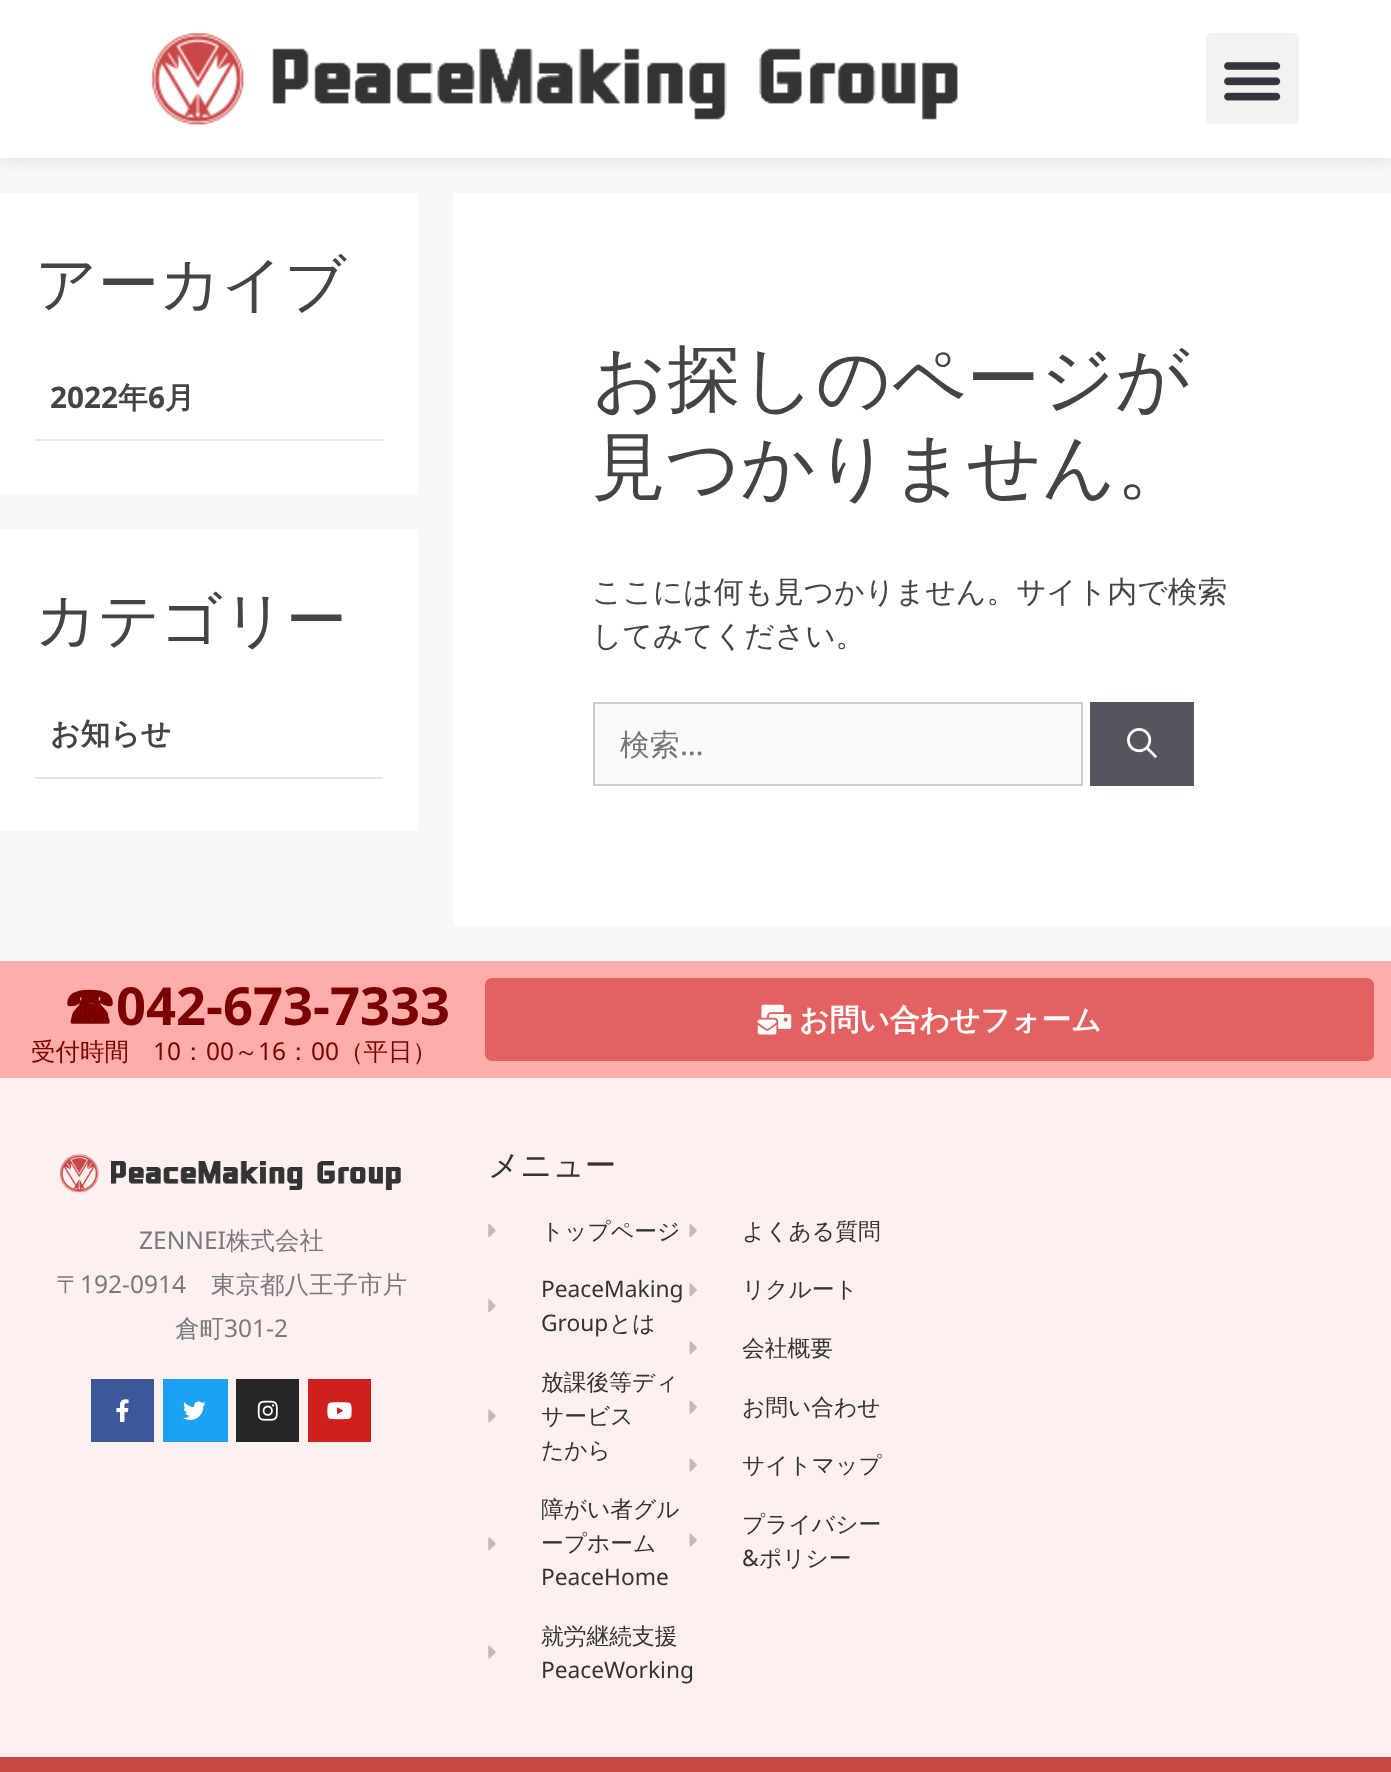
async function draw(canvas) {
	canvas.width = 1391;
	canvas.height = 1772;
	const c = canvas.getContext('2d');
	c.miterLimit = 4;
	c.fontKerning = 'normal';
	async function loadImage(src) {
		const img = new Image();
		img.src = src;
		await img.decode();
		return img;
	}

	c.fillStyle = '#f7f8f9';
	c.fillRect(0, 0, 1391, 1772);
	c.fillStyle = '#00000021';
	c.filter = 'blur(9px)';
	c.beginPath();
	c.rect(0, 0, 1391, 158);
	c.fill();
	c.filter = 'none';
	c.fillStyle = '#fff';
	c.fillRect(0, 0, 1391, 158);
	c.drawImage(await loadImage('img1.png'), 151, 32, 807, 93);
	c.fillStyle = '#f2f2f2';
	c.beginPath();
	c.roundRect(1206, 33, 93, 91, 5);
	c.fill();
	c.drawImage(await loadImage('img2.png'), 1224, 62, 57, 39);
	c.fillStyle = '#fff';
	c.fillRect(0, 193, 418, 301);
	c.font = '500 61.25px WenQuanYi Zen Hei';
	c.fillStyle = '#444';
	c.fillText('アーカイブ', 35, 305);
	c.fillStyle = '#e6e6e6';
	c.fillRect(35, 439, 348, 2);
	c.font = 'bold 29.75px Noto Sans';
	c.fillStyle = '#444';
	c.fillText('2022', 50, 408);
	c.font = 'bold 29.75px WenQuanYi Zen Hei';
	c.fillText('年', 118, 408);
	c.font = 'bold 29.75px Noto Sans';
	c.fillText('6', 148, 408);
	c.font = 'bold 29.75px WenQuanYi Zen Hei';
	c.fillText('月', 165, 408);
	c.fillStyle = '#fff';
	c.fillRect(0, 529, 418, 302);
	c.font = '500 61.25px WenQuanYi Zen Hei';
	c.fillStyle = '#444';
	c.fillText('カテゴリー', 35, 641);
	c.fillStyle = '#e6e6e6';
	c.fillRect(35, 777, 348, 2);
	c.font = 'bold 29.75px WenQuanYi Zen Hei';
	c.fillStyle = '#444';
	c.fillText('お知らせ', 50, 744);
	c.fillStyle = '#fff';
	c.fillRect(453, 193, 938, 733);
	c.font = '500 73.5px WenQuanYi Zen Hei';
	c.fillStyle = '#444';
	c.fillText('お探しのページが', 592, 404);
	c.fillText('見つかりません。', 592, 492);
	c.font = '500 29.75px WenQuanYi Zen Hei';
	c.fillText('ここには何も見つかりません。サイト内で検索', 592, 602);
	c.fillText('してみてください。', 592, 646);
	c.fillStyle = '#fafafa';
	c.beginPath();
	c.rect(594, 703, 488, 82);
	c.fill();
	c.strokeStyle = '#ccc';
	c.lineWidth = 2;
	c.stroke();
	c.fillStyle = '#757575';
	c.fillText('検索', 620, 755);
	c.font = '29.75px Noto Sans';
	c.fillText('…', 680, 755);
	c.fillStyle = '#55555e';
	c.fillRect(1090, 702, 104, 84);
	c.drawImage(await loadImage('img3.png'), 1127, 728, 30, 30);
	c.fillStyle = '#ffadab';
	c.fillRect(0, 961, 1391, 117);
	c.font = 'bold 52.5px WenQuanYi Zen Hei';
	c.fillStyle = '#7b0000';
	c.fillText('☎', 63, 1025);
	c.font = 'bold 52.5px Open Sans';
	c.fillText('042-673-7333', 116, 1025);
	c.font = '500 24.5px WenQuanYi Zen Hei';
	c.fillText('受付時間', 31, 1060);
	c.font = '24.5px Noto Sans';
	c.fillText('10', 153, 1060);
	c.font = '500 24.5px WenQuanYi Zen Hei';
	c.fillText('：', 181, 1060);
	c.font = '24.5px Noto Sans';
	c.fillText('00', 206, 1060);
	c.font = '500 24.5px WenQuanYi Zen Hei';
	c.fillText('～', 234, 1060);
	c.font = '24.5px Noto Sans';
	c.fillText('16', 258, 1060);
	c.font = '500 24.5px WenQuanYi Zen Hei';
	c.fillText('：', 286, 1060);
	c.font = '24.5px Noto Sans';
	c.fillText('00', 311, 1060);
	c.font = '500 24.5px WenQuanYi Zen Hei';
	c.fillText('（平日）', 339, 1060);
	c.fillStyle = '#e46161';
	c.beginPath();
	c.roundRect(485, 978, 889, 83, 7);
	c.fill();
	c.drawImage(await loadImage('img4.png'), 757, 1004, 35, 31);
	c.font = 'bold 29.75px WenQuanYi Zen Hei';
	c.fillStyle = '#fff';
	c.fillText('お問い合わせフォーム', 799, 1030);
	c.fillStyle = '#fff0f0';
	c.fillRect(0, 1078, 1391, 679);
	c.drawImage(await loadImage('img5.png'), 60, 1154, 341, 39);
	c.font = '24.5px Noto Sans';
	c.fillStyle = '#78797d';
	c.fillText('ZENNEI', 139, 1249);
	c.font = '500 24.5px WenQuanYi Zen Hei';
	c.fillText('株式会社', 226, 1249);
	c.fillText('〒', 56, 1293);
	c.font = '24.5px Noto Sans';
	c.fillText('192-0914', 80, 1293);
	c.font = '500 24.5px WenQuanYi Zen Hei';
	c.fillText('東京都八王子市片', 211, 1293);
	c.fillText('倉町', 175, 1337);
	c.font = '24.5px Noto Sans';
	c.fillText('301-2', 224, 1337);
	c.fillStyle = '#3b5998';
	c.fillRect(91, 1379, 63, 63);
	c.drawImage(await loadImage('img6.png'), 116, 1399, 13, 24);
	c.fillStyle = '#1da1f2';
	c.fillRect(163, 1379, 65, 63);
	c.drawImage(await loadImage('img7.png'), 183, 1401, 23, 19);
	c.fillStyle = '#262626';
	c.fillRect(236, 1379, 63, 63);
	c.drawImage(await loadImage('img8.png'), 257, 1400, 21, 21);
	c.fillStyle = '#cd201f';
	c.fillRect(308, 1379, 63, 63);
	c.drawImage(await loadImage('img9.png'), 327, 1402, 25, 18);
	c.font = '500 31.5px WenQuanYi Zen Hei';
	c.fillStyle = '#333';
	c.fillText('メニュー', 488, 1176);
	c.drawImage(await loadImage('img10.png'), 488, 1224, 8, 13);
	c.font = '500 22.75px WenQuanYi Zen Hei';
	c.fillText('トップページ', 541, 1239);
	c.drawImage(await loadImage('img11.png'), 488, 1299, 8, 14);
	c.font = '22.75px Noto Sans';
	c.fillText('PeaceMaking', 541, 1297);
	c.fillText('Group', 541, 1331);
	c.font = '500 22.75px WenQuanYi Zen Hei';
	c.fillText('とは', 609, 1331);
	c.drawImage(await loadImage('img12.png'), 488, 1409, 8, 14);
	for (const [text, x, y] of [
		['放課後等ディ', 541, 1390],
		['サービス', 541, 1424],
		['たから', 541, 1458],
	]) {
		c.fillText(text, x, y);
	}
	c.drawImage(await loadImage('img11.png'), 488, 1537, 8, 14);
	c.fillText('障がい者グル', 541, 1517);
	c.fillText('ープホーム', 541, 1551);
	c.font = '22.75px Noto Sans';
	c.fillText('PeaceHome', 541, 1585);
	c.drawImage(await loadImage('img13.png'), 488, 1645, 8, 14);
	c.font = '500 22.75px WenQuanYi Zen Hei';
	c.fillText('就労継続支援', 541, 1644);
	c.font = '22.75px Noto Sans';
	c.fillText('PeaceWorking', 541, 1678);
	c.drawImage(await loadImage('img14.png'), 689, 1224, 8, 13);
	c.font = '500 22.75px WenQuanYi Zen Hei';
	c.fillText('よくある質問', 742, 1239);
	c.drawImage(await loadImage('img15.png'), 689, 1283, 8, 14);
	c.fillText('リクルート', 742, 1297);
	c.drawImage(await loadImage('img16.png'), 689, 1341, 8, 14);
	c.fillText('会社概要', 742, 1356);
	c.drawImage(await loadImage('img17.png'), 689, 1400, 8, 14);
	c.fillText('お問い合わせ', 742, 1415);
	c.drawImage(await loadImage('img15.png'), 689, 1458, 8, 14);
	c.fillText('サイトマップ', 742, 1473);
	c.drawImage(await loadImage('img17.png'), 689, 1533, 8, 14);
	c.fillText('プライバシー', 742, 1532);
	c.font = '22.75px Noto Sans';
	c.fillText('&', 742, 1566);
	c.font = '500 22.75px WenQuanYi Zen Hei';
	c.fillText('ポリシー', 759, 1566);
	c.fillStyle = '#c94744';
	c.fillRect(0, 1757, 1391, 15);
}

draw(document.querySelector('canvas'));
